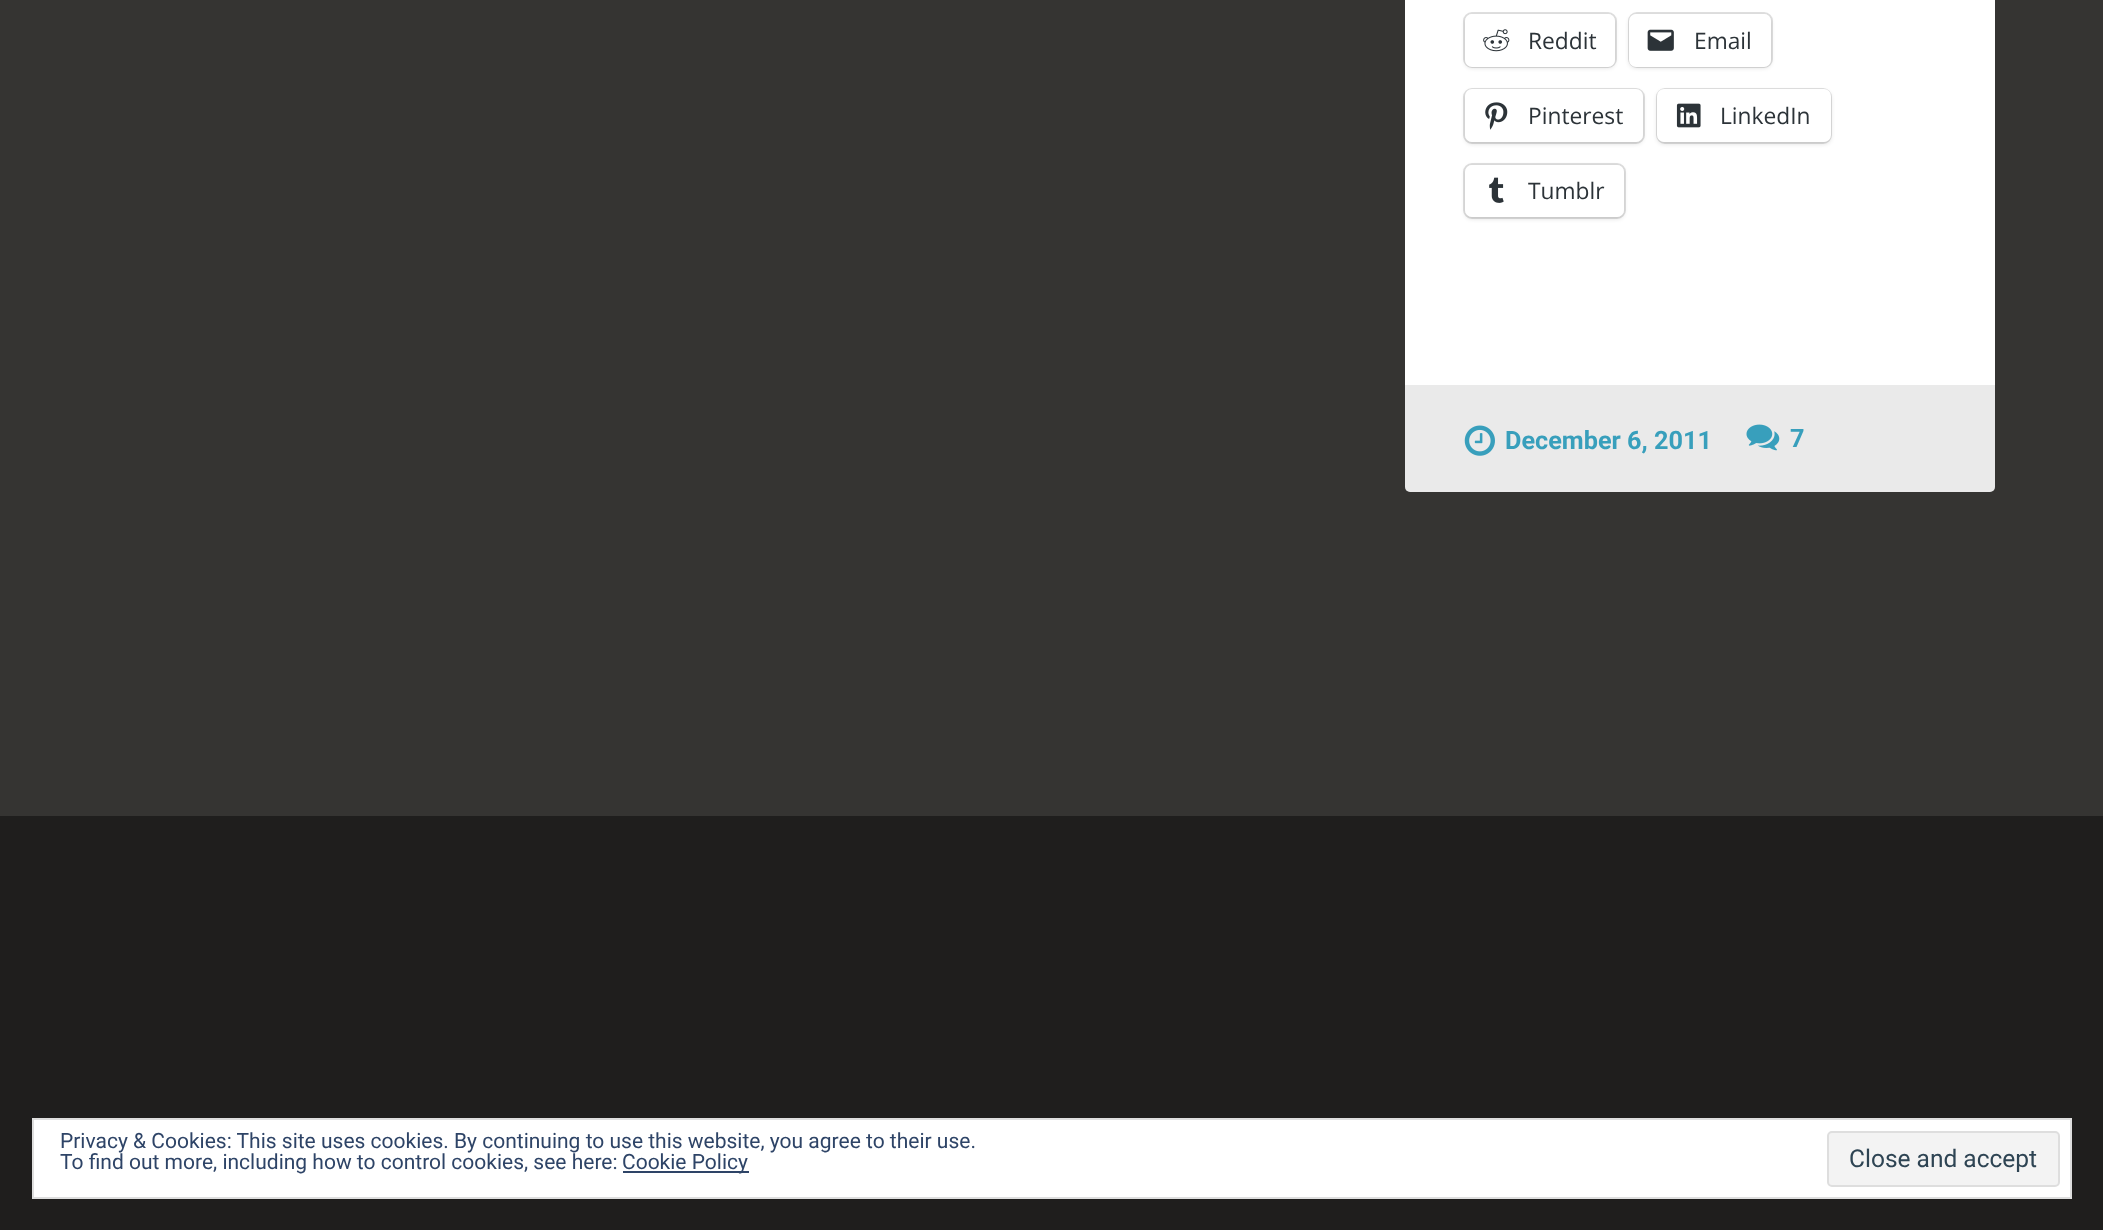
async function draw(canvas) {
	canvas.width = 2103;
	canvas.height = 1230;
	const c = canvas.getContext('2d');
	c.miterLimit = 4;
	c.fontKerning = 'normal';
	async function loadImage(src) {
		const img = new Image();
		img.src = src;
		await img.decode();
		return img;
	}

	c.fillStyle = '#353432';
	c.fillRect(0, 0, 2103, 1230);
	c.fillStyle = '#fff';
	c.beginPath();
	c.roundRect(1405, -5, 590, 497, 5);
	c.fill();
	c.beginPath();
	c.roundRect(1464, 13, 152, 54, 8);
	c.strokeStyle = '#e0e0e0';
	c.lineWidth = 2;
	c.stroke();
	c.fillStyle = '#0000001f';
	c.filter = 'blur(2px)';
	c.beginPath();
	c.roundRect(1465, 16, 150, 52, 7);
	c.fill();
	c.filter = 'none';
	c.fillStyle = '#fff';
	c.beginPath();
	c.roundRect(1465, 14, 150, 53, 7);
	c.fill();
	c.drawImage(await loadImage('img1.png'), 1483, 29, 27, 23);
	c.font = '22.75px Open Sans';
	c.fillStyle = '#2c3338';
	c.fillText('Reddit', 1528, 49);
	c.beginPath();
	c.roundRect(1629, 13, 143, 54, 8);
	c.stroke();
	c.fillStyle = '#0000001f';
	c.filter = 'blur(2px)';
	c.beginPath();
	c.roundRect(1629, 16, 142, 52, 7);
	c.fill();
	c.filter = 'none';
	c.fillStyle = '#fff';
	c.beginPath();
	c.roundRect(1629, 14, 142, 53, 7);
	c.fill();
	c.drawImage(await loadImage('img2.png'), 1647, 29, 27, 22);
	c.fillStyle = '#2c3338';
	c.fillText('Email', 1694, 49);
	c.beginPath();
	c.roundRect(1464, 89, 180, 54, 8);
	c.stroke();
	c.fillStyle = '#0000001f';
	c.filter = 'blur(2px)';
	c.beginPath();
	c.roundRect(1465, 91, 178, 53, 7);
	c.fill();
	c.filter = 'none';
	c.fillStyle = '#fff';
	c.beginPath();
	c.roundRect(1465, 89, 178, 53, 7);
	c.fill();
	c.drawImage(await loadImage('img3.png'), 1485, 102, 23, 28);
	c.fillStyle = '#2c3338';
	c.fillText('Pinterest', 1528, 124);
	c.beginPath();
	c.roundRect(1657, 89, 174, 54, 8);
	c.stroke();
	c.fillStyle = '#0000001f';
	c.filter = 'blur(2px)';
	c.beginPath();
	c.roundRect(1657, 91, 174, 53, 7);
	c.fill();
	c.filter = 'none';
	c.fillStyle = '#fff';
	c.beginPath();
	c.roundRect(1657, 89, 174, 53, 7);
	c.fill();
	c.drawImage(await loadImage('img4.png'), 1676, 103, 25, 25);
	c.fillStyle = '#2c3338';
	c.fillText('LinkedIn', 1720, 124);
	c.beginPath();
	c.roundRect(1464, 164, 161, 54, 8);
	c.stroke();
	c.fillStyle = '#0000001f';
	c.filter = 'blur(2px)';
	c.beginPath();
	c.roundRect(1465, 166, 159, 53, 7);
	c.fill();
	c.filter = 'none';
	c.fillStyle = '#fff';
	c.beginPath();
	c.roundRect(1465, 165, 159, 52, 7);
	c.fill();
	c.drawImage(await loadImage('img5.png'), 1489, 177, 15, 26);
	c.fillStyle = '#2c3338';
	c.fillText('Tumblr', 1528, 199);
	c.fillStyle = '#3534321a';
	c.beginPath();
	c.roundRect(1405, 385, 590, 107, [0, 0, 5, 5]);
	c.fill();
	c.drawImage(await loadImage('img6.png'), 1464, 425, 31, 31);
	c.font = 'bold 25.25px Roboto';
	c.fillStyle = '#389fbc';
	c.fillText('December 6, 2011', 1505, 449);
	c.drawImage(await loadImage('img7.png'), 1746, 424, 34, 27);
	c.fillText('7', 1790, 447);
	c.fillStyle = '#1f1e1d';
	c.fillRect(0, 816, 2103, 414);
	c.fillStyle = '#fff';
	c.beginPath();
	c.rect(33, 1119, 2038, 79);
	c.fill();
	c.strokeStyle = '#dedede';
	c.stroke();
	c.font = '21px Roboto';
	c.fillStyle = '#2e4467';
	c.fillText('Privacy & Cookies: This site uses cookies. By continuing to use this website, you agree to their use.', 60, 1148);
	c.fillText('To find out more, including how to control cookies, see here:', 60, 1169);
	c.fillRect(623, 1171, 126, 2);
	c.fillText('Cookie Policy', 622, 1169);
	c.fillStyle = '#f3f3f3';
	c.beginPath();
	c.roundRect(1828, 1132, 231, 54, 4);
	c.fill();
	c.stroke();
	c.font = '24.5px Roboto';
	c.fillStyle = '#2e4453';
	c.fillText('Close and accept', 1849, 1167);
}

draw(document.querySelector('canvas'));
